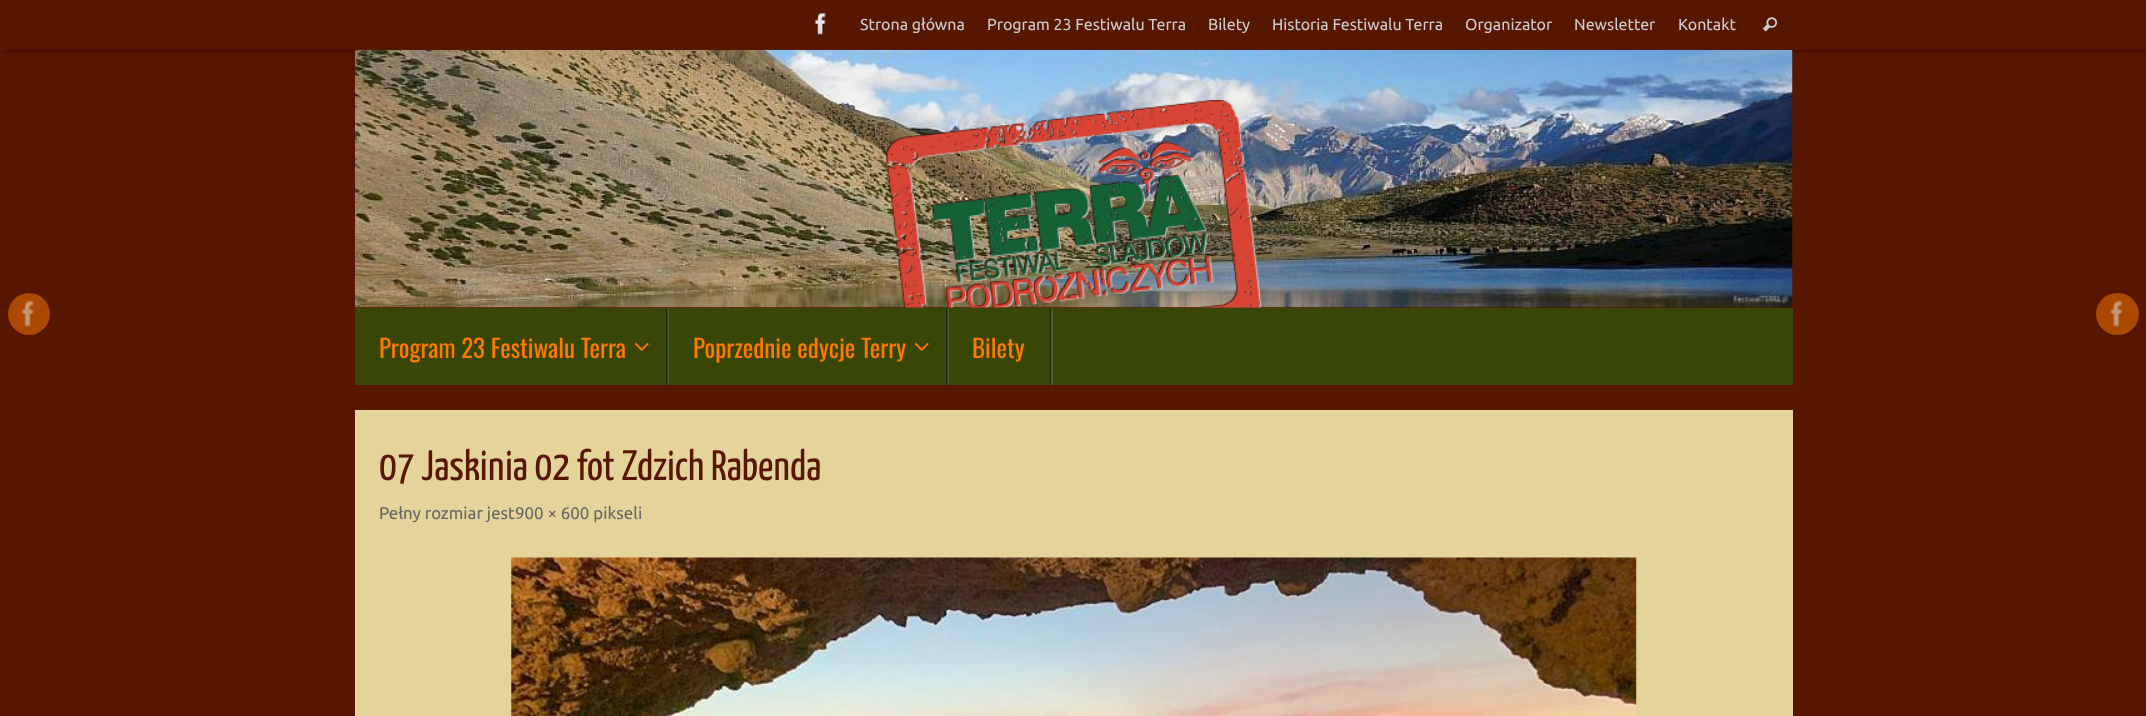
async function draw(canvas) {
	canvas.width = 2146;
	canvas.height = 716;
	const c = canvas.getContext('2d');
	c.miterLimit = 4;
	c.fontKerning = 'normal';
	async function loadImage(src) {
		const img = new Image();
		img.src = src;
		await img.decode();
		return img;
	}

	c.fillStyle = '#571600';
	c.fillRect(0, 0, 2146, 716);
	c.save();
	c.beginPath();
	c.rect(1, 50, 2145, 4);
	c.clip();
	c.fillStyle = '#2f0000';
	c.filter = 'blur(2px)';
	c.beginPath();
	c.rect(4, 0, 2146, 50);
	c.fill();
	c.filter = 'none';
	c.restore();
	c.drawImage(await loadImage('img1.png'), 814, 13, 12, 23);
	c.font = '16px Ubuntu';
	c.fillStyle = '#ccc';
	for (const [text, x, y] of [
		['Strona główna', 860, 30],
		['Program 23 Festiwalu Terra', 987, 30],
		['Bilety', 1208, 30],
		['Historia Festiwalu Terra', 1272, 30],
		['Organizator', 1465, 30],
		['Newsletter', 1574, 30],
		['Kontakt', 1678, 30],
	]) {
		c.fillText(text, x, y);
	}
	c.drawImage(await loadImage('img2.png'), 1762, 17, 15, 15);
	c.fillStyle = '#ab4801';
	c.beginPath();
	c.arc(29, 314, 21, 0, 2 * Math.PI);
	c.fill();
	c.drawImage(await loadImage('img3.png'), 21, 300, 13, 29);
	c.beginPath();
	c.roundRect(2096, 293, 43, 42, 21);
	c.fill();
	c.drawImage(await loadImage('img4.png'), 2110, 300, 13, 29);
	c.drawImage(await loadImage('img5.png'), 355, 50, 1438, 258);
	c.drawImage(await loadImage('img6.png'), 886, 100, 376, 208);
	for (const [x, y, w, h, color] of [
		[355, 308, 1438, 77, '#384708'],
		[668, 308, 1, 77, '#505f20'],
		[666, 308, 1, 77, '#1a2900'],
	]) {
		c.fillStyle = color;
		c.fillRect(x, y, w, h);
	}
	c.font = '25px Oswald';
	c.fillStyle = '#ff7901';
	c.fillText('Program 23 Festiwalu Terra', 379, 358);
	c.drawImage(await loadImage('img7.png'), 634, 342, 15, 9);
	c.fillStyle = '#505f20';
	c.fillRect(948, 308, 1, 77);
	c.fillStyle = '#1a2900';
	c.fillRect(946, 308, 1, 77);
	c.fillStyle = '#ff7901';
	c.fillText('Poprzednie edycje Terry', 693, 358);
	c.drawImage(await loadImage('img7.png'), 914, 342, 15, 9);
	c.fillStyle = '#505f20';
	c.fillRect(1051, 308, 2, 77);
	c.fillStyle = '#1a2900';
	c.fillRect(1050, 308, 1, 77);
	c.fillStyle = '#ff7901';
	c.fillText('Bilety', 972, 358);
	c.fillStyle = '#e5d499';
	c.fillRect(355, 410, 1438, 306);
	c.font = '200 42.5px Yanone Kaffeesatz';
	c.fillStyle = '#571600';
	c.fillText('07 Jaskinia 02 fot Zdzich Rabenda', 379, 480);
	c.font = '16.9px Ubuntu';
	c.fillStyle = '#666';
	c.fillText('Pełny rozmiar jest900 × 600 pikseli', 379, 519);
	c.drawImage(await loadImage('img8.png'), 511, 557, 1126, 159);
}

draw(document.querySelector('canvas'));
